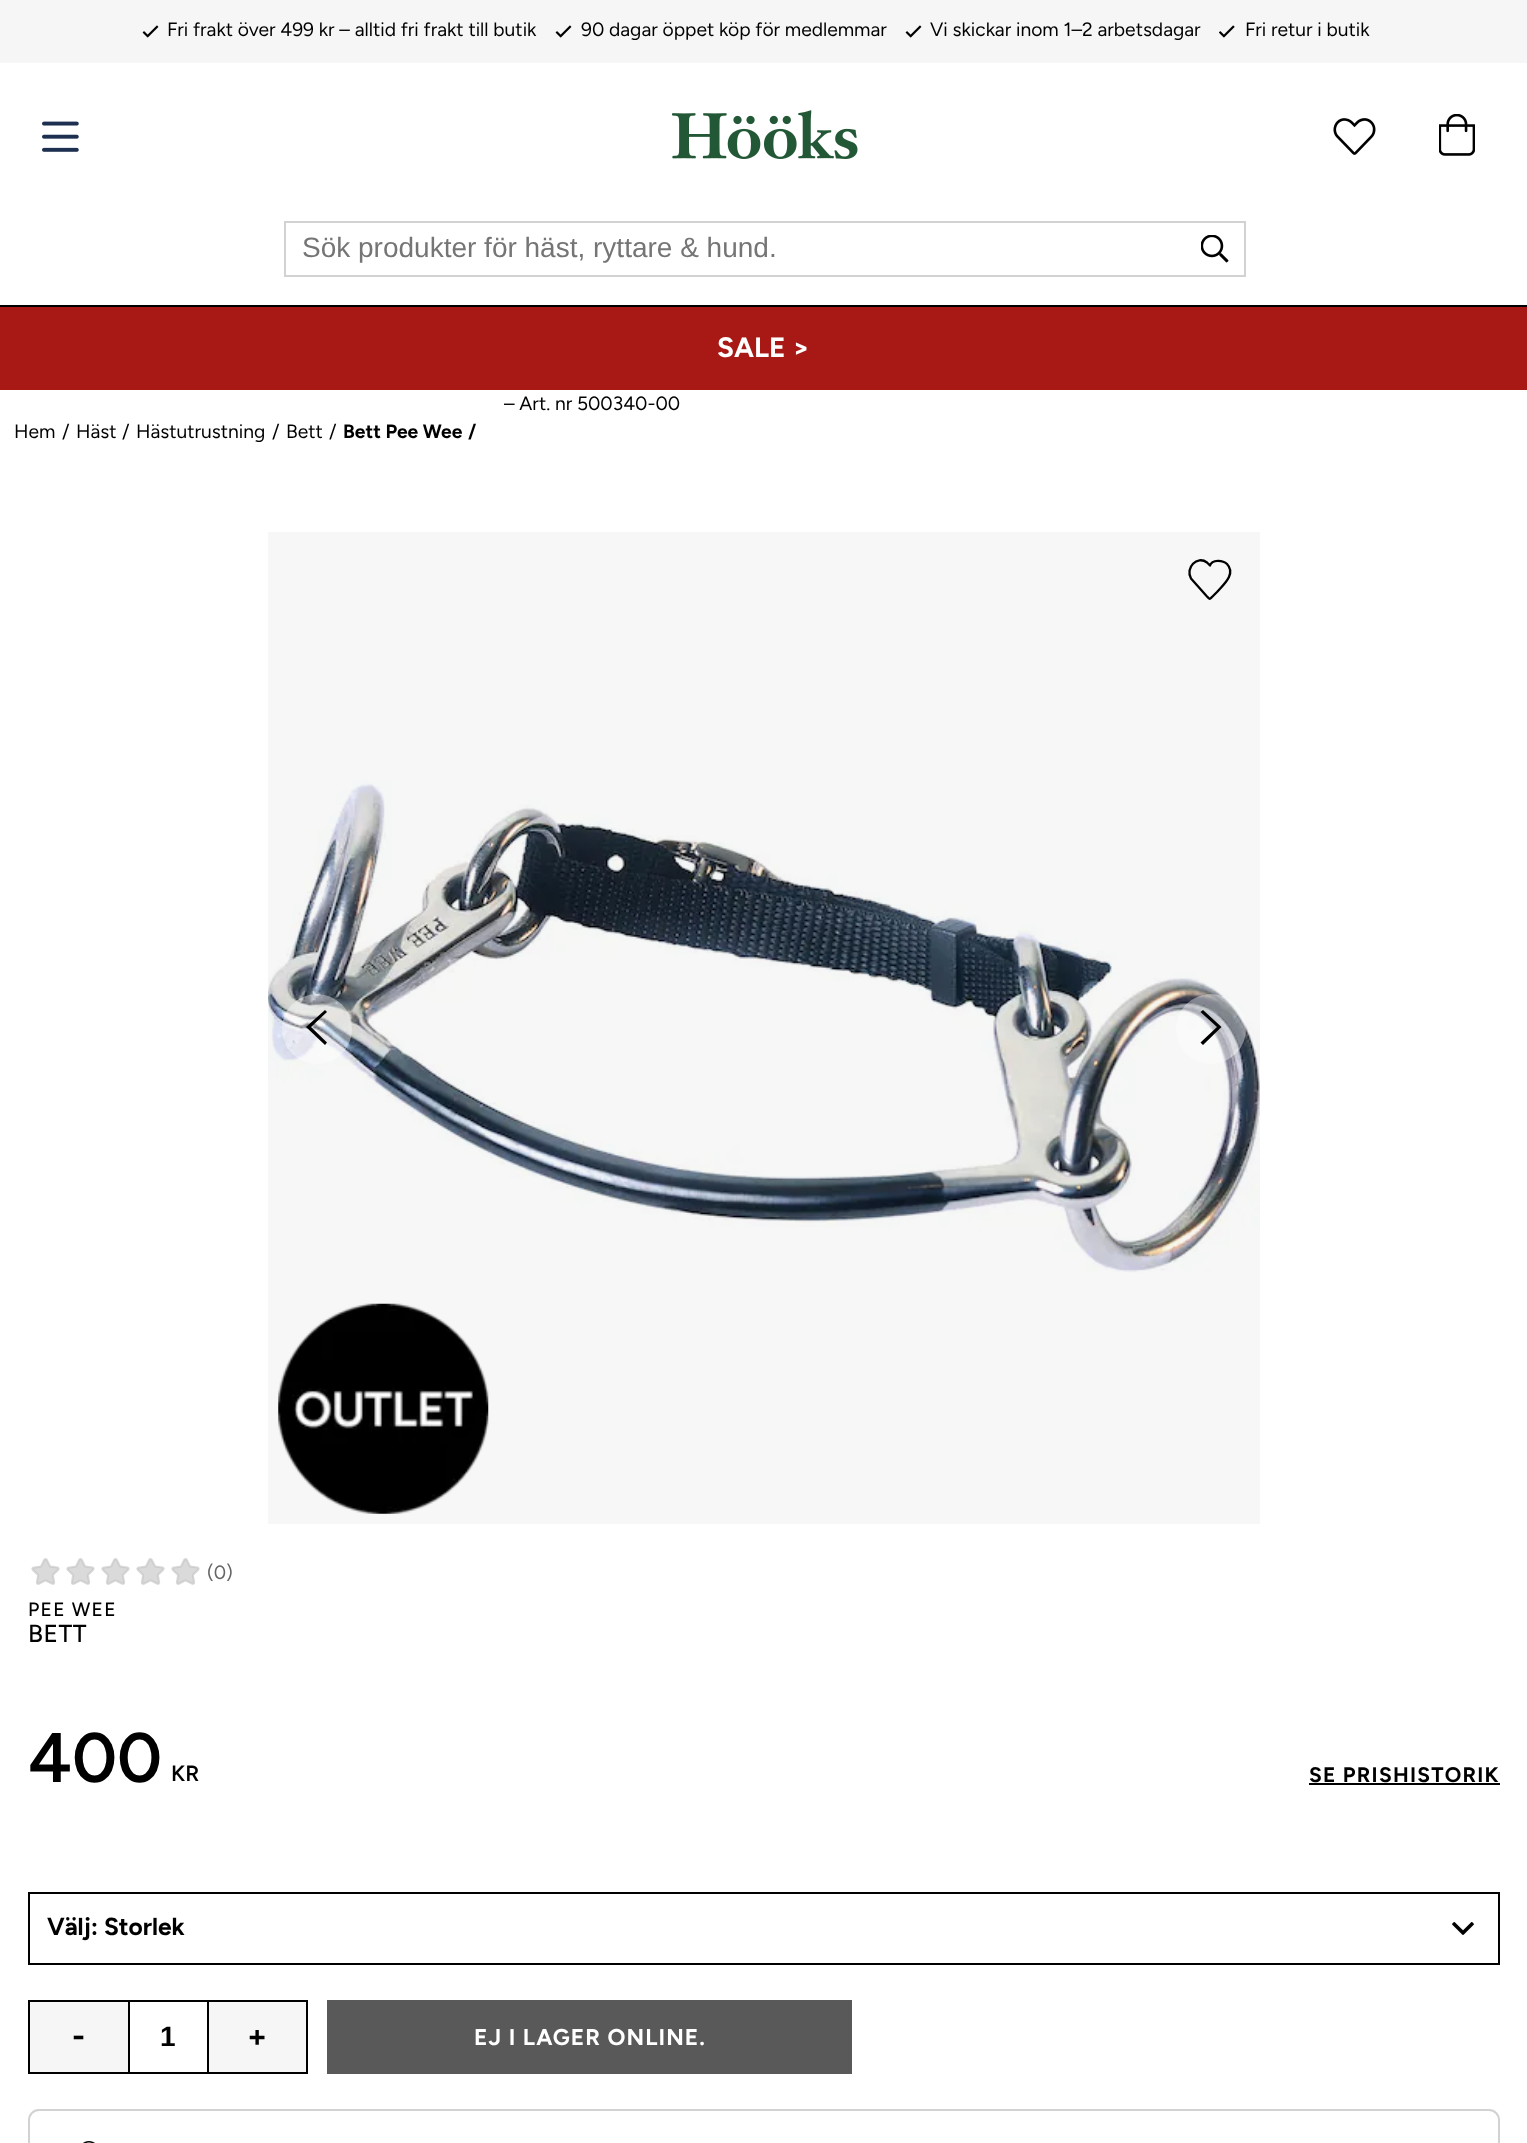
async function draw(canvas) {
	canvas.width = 1527;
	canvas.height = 2143;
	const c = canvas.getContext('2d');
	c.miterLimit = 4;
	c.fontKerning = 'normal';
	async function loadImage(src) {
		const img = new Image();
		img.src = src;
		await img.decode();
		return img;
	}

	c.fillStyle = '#fff';
	c.fillRect(0, 0, 1527, 2143);
	for (const [x, y, w, h, color] of [
		[268, 532, 992, 992, '#f7f7f7'],
		[0, 305, 1527, 2, '#000'],
		[0, 0, 1527, 63, '#f6f6f6'],
	]) {
		c.fillStyle = color;
		c.fillRect(x, y, w, h);
	}
	c.drawImage(await loadImage('img1.png'), 142, 25, 17, 13);
	c.font = '19.25px Figtree';
	c.fillStyle = '#000';
	c.fillText('Fri frakt över 499 kr – alltid fri frakt till butik', 167, 36);
	c.drawImage(await loadImage('img1.png'), 555, 25, 17, 13);
	c.fillText('90 dagar öppet köp för medlemmar', 581, 36);
	c.drawImage(await loadImage('img1.png'), 905, 25, 17, 13);
	c.fillText('Vi skickar inom 1–2 arbetsdagar', 930, 36);
	c.drawImage(await loadImage('img2.png'), 1219, 25, 16, 13);
	c.fillText('Fri retur i butik', 1245, 36);
	c.drawImage(await loadImage('img3.png'), 42, 121, 37, 31);
	c.drawImage(await loadImage('img4.png'), 672, 110, 186, 49);
	c.drawImage(await loadImage('img5.png'), 1333, 118, 43, 37);
	c.drawImage(await loadImage('img6.png'), 1439, 114, 36, 42);
	c.strokeStyle = '#d2d2d2';
	c.lineWidth = 2;
	c.strokeRect(285, 222, 960, 54);
	c.font = '28px Liberation Sans';
	c.fillStyle = '#757575';
	c.fillText('Sök produkter för häst, ryttare & hund.', 302, 257);
	c.drawImage(await loadImage('img7.png'), 1201, 235, 28, 28);
	c.fillStyle = '#a81815';
	c.fillRect(0, 307, 1527, 83);
	c.font = 'bold 28px Figtree';
	c.fillStyle = '#fff';
	c.fillText('SALE >', 717, 357);
	c.font = '19.25px Figtree';
	c.fillStyle = '#000';
	for (const [text, x, y] of [
		['– Art. nr 500340-00', 504, 410],
		['Hem', 14, 438],
		['/', 62, 438],
		['Häst', 76, 438],
		['/', 122, 438],
		['Hästutrustning', 136, 438],
		['/', 272, 438],
		['Bett', 286, 438],
		['/', 329, 438],
	]) {
		c.fillText(text, x, y);
	}
	c.font = 'bold 19.25px Figtree';
	c.fillText('Bett Pee Wee', 343, 438);
	c.fillText('/', 468, 438);
	c.beginPath();
	c.moveTo(1227, 564);
	c.bezierCurveTo(1223, 560, 1212, 559, 1210, 565.5);
	c.lineTo(1207, 562.5);
	c.bezierCurveTo(1197, 555, 1185, 568, 1191, 578.5);
	c.lineTo(1207, 596.5);
	c.bezierCurveTo(1210, 599.5, 1209.5, 599.5, 1212.5, 596.5);
	c.lineTo(1217, 592);
	c.bezierCurveTo(1223, 585, 1236.5, 574, 1227, 564);
	c.closePath();
	c.strokeStyle = '#000';
	c.lineWidth = 2.3;
	c.lineCap = 'round';
	c.lineJoin = 'round';
	c.stroke();
	c.drawImage(await loadImage('img8.png'), 268, 780, 992, 493);
	c.drawImage(await loadImage('img9.png'), 278, 1303, 211, 211);
	c.fillStyle = '#ffffff66';
	c.beginPath();
	c.arc(317, 1029, 35, 0, 2 * Math.PI);
	c.fill();
	c.fillStyle = '#000';
	c.beginPath();
	c.moveTo(327, 1012);
	c.lineTo(311, 1027);
	c.lineTo(327, 1042.5);
	c.lineTo(325, 1045);
	c.lineTo(306, 1027);
	c.lineTo(325, 1010);
	c.closePath();
	c.fill();
	c.fillStyle = '#ffffff66';
	c.beginPath();
	c.arc(1211, 1029, 35, 0, 2 * Math.PI);
	c.fill();
	c.fillStyle = '#000';
	c.beginPath();
	c.moveTo(1200.5, 1012);
	c.lineTo(1203, 1010);
	c.lineTo(1221.5, 1027);
	c.lineTo(1203, 1045);
	c.lineTo(1200.5, 1042.5);
	c.lineTo(1217, 1027);
	c.closePath();
	c.fill();
	c.drawImage(await loadImage('img10.png'), 31, 1558, 29, 27);
	c.drawImage(await loadImage('img10.png'), 66, 1558, 29, 27);
	c.drawImage(await loadImage('img10.png'), 101, 1558, 29, 27);
	c.drawImage(await loadImage('img10.png'), 136, 1558, 29, 27);
	c.drawImage(await loadImage('img10.png'), 171, 1558, 29, 27);
	c.font = '19.25px Figtree';
	c.fillStyle = '#666';
	c.fillText('(0)', 207, 1579);
	c.letterSpacing = '1.25px';
	c.font = '500 19.25px Figtree';
	c.fillStyle = '#000';
	c.fillText('PEE WEE', 28, 1616);
	c.letterSpacing = '0.5px';
	c.font = '500 24.5px Figtree';
	c.fillText('BETT', 28, 1642);
	c.letterSpacing = '0px';
	c.font = '600 70px Figtree';
	c.fillText('400', 28, 1782);
	c.font = '600 22px Figtree';
	c.fillText('KR', 171, 1781);
	c.letterSpacing = '1.25px';
	c.font = 'bold 21px Figtree';
	c.fillText('SE PRISHISTORIK', 1309, 1782);
	c.fillRect(1309, 1783, 191, 2);
	c.lineWidth = 2;
	c.lineJoin = 'miter';
	c.strokeRect(29, 1893, 1470, 71);
	c.letterSpacing = '0px';
	c.font = 'bold 24.5px Figtree';
	c.fillText('Välj: Storlek', 47, 1935);
	c.drawImage(await loadImage('img11.png'), 1452, 1922, 22, 13);
	c.fillStyle = '#f6f6f6';
	c.beginPath();
	c.rect(29, 2001, 100, 72);
	c.fill();
	c.stroke();
	c.font = 'bold 32px Figtree';
	c.fillStyle = '#000';
	c.fillText('-', 72, 2047);
	c.fillRect(130, 2000, 77, 2);
	c.fillRect(130, 2072, 77, 2);
	c.font = 'bold 28px Liberation Sans';
	c.fillText('1', 160, 2046);
	c.fillStyle = '#f6f6f6';
	c.beginPath();
	c.rect(208, 2001, 99, 72);
	c.fill();
	c.stroke();
	c.font = 'bold 32px Figtree';
	c.fillStyle = '#000';
	c.fillText('+', 247, 2047);
	c.fillStyle = '#595959';
	c.fillRect(327, 2000, 525, 74);
	c.letterSpacing = '1.1px';
	c.font = 'bold 22.75px Figtree';
	c.fillStyle = '#fff';
	c.fillText('EJ I LAGER ONLINE.', 474, 2045);
	c.beginPath();
	c.roundRect(29, 2110, 1470, 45, 10);
	c.strokeStyle = '#d2d2d2';
	c.stroke();
	c.drawImage(await loadImage('img12.png'), 83, 2141, 12, 2);
}

draw(document.querySelector('canvas'));
